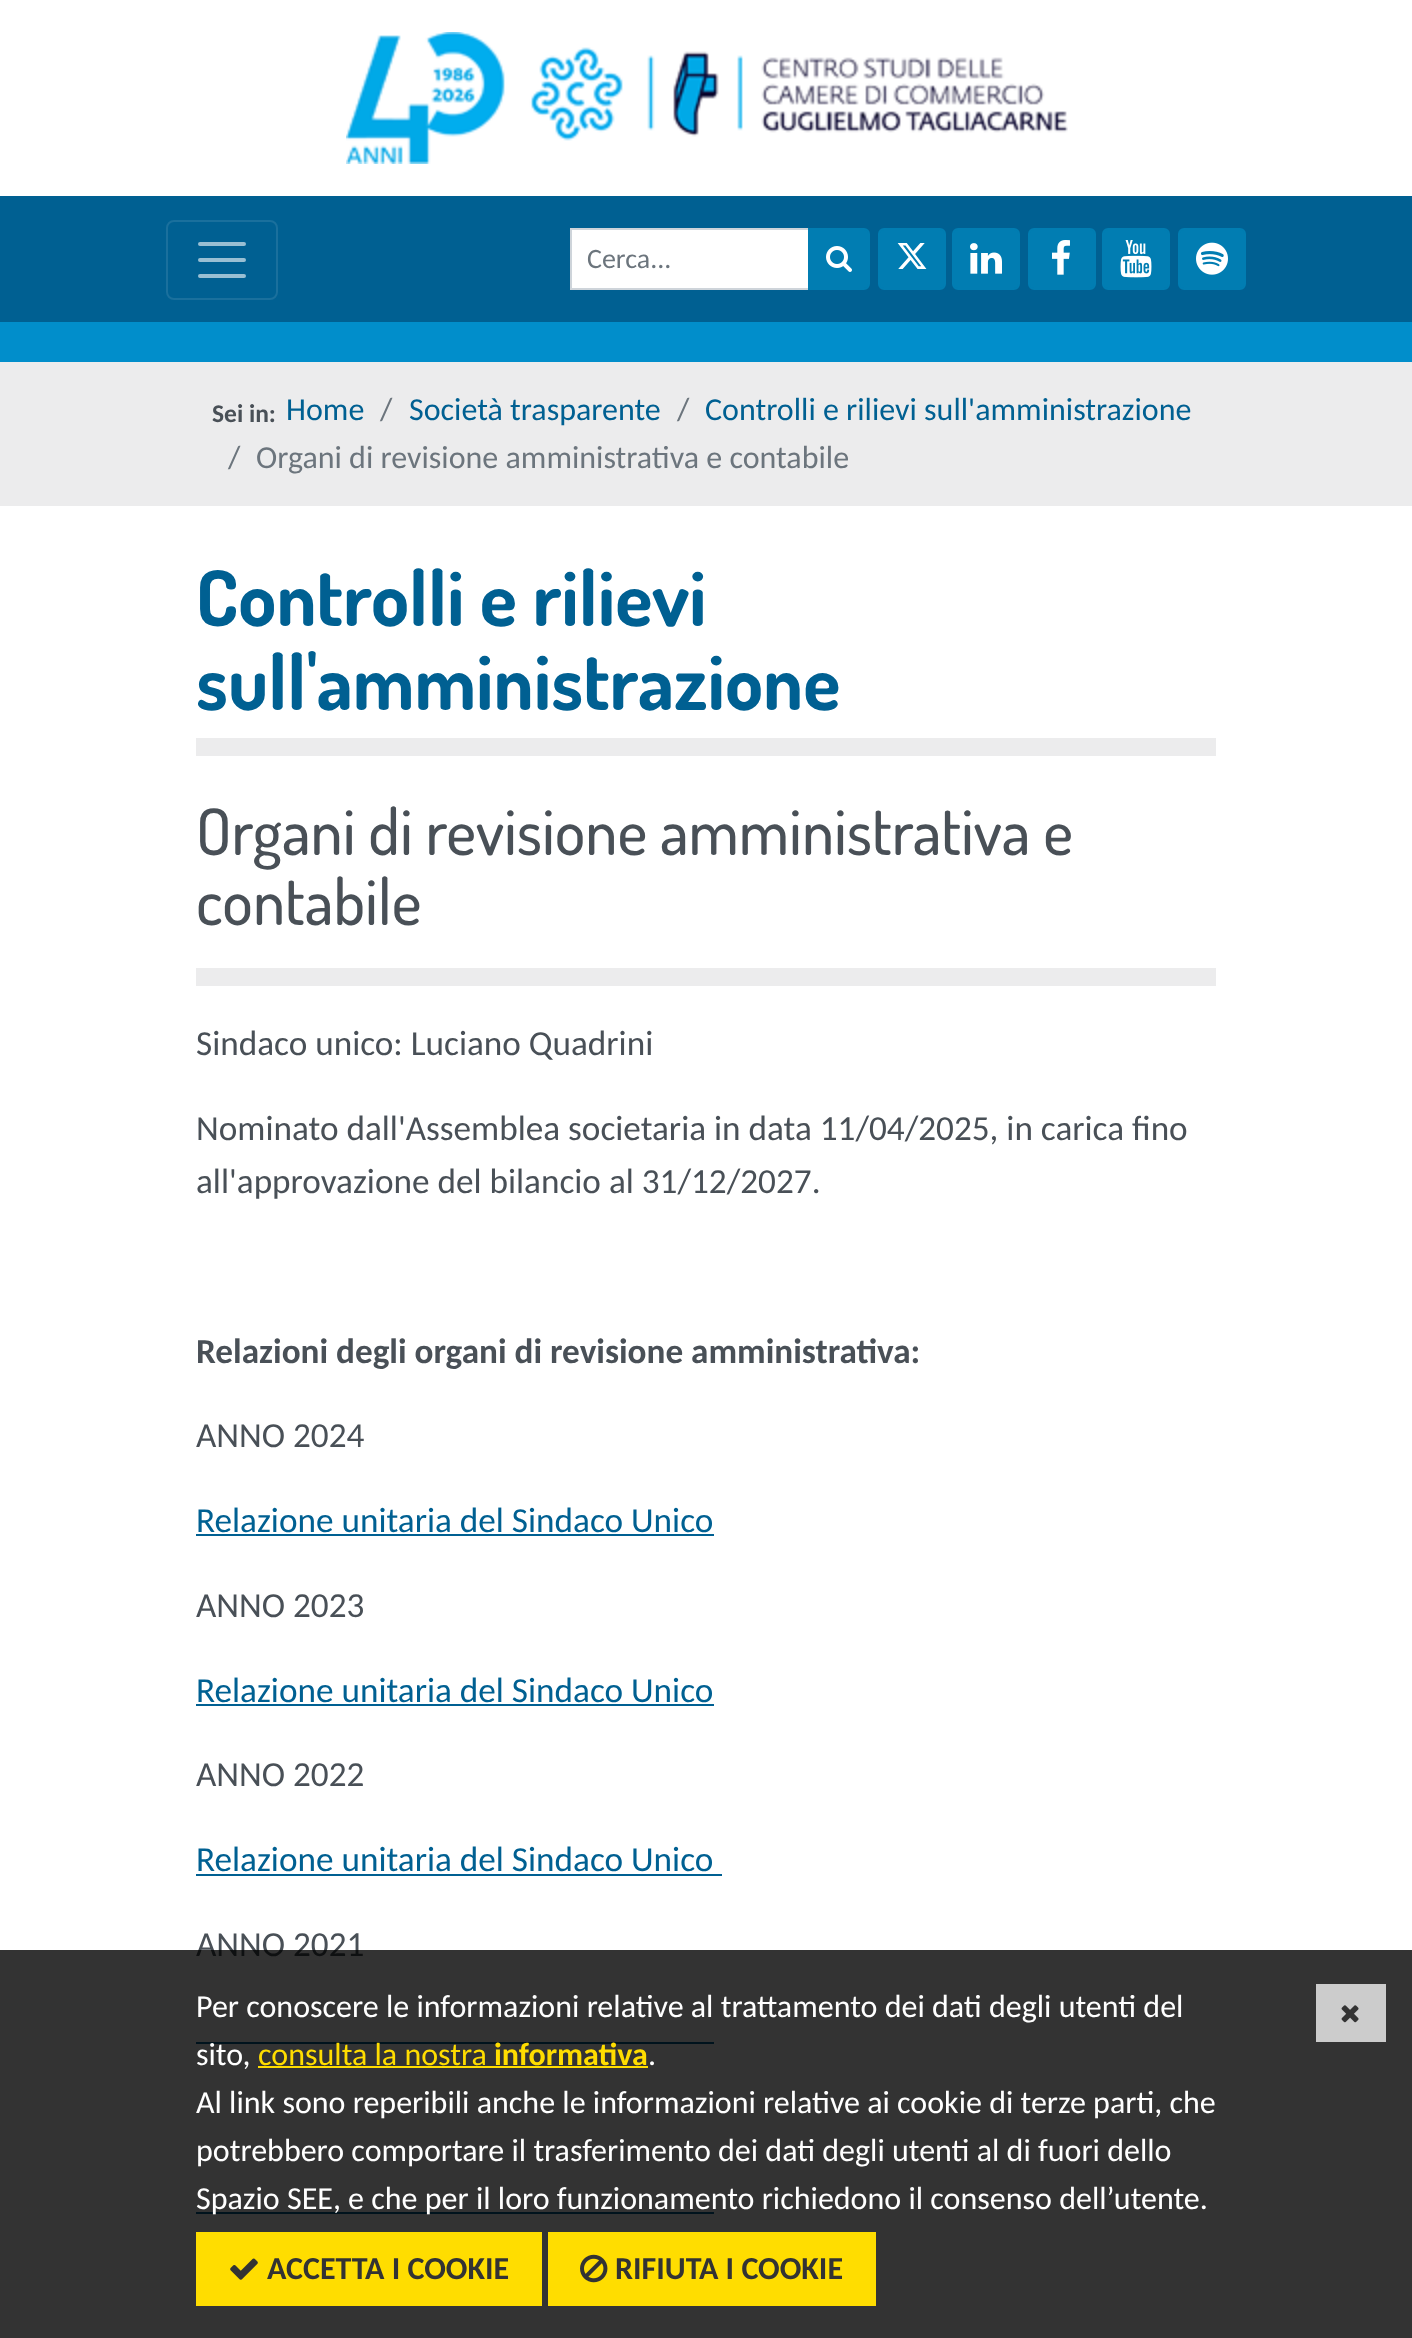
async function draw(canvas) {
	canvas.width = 1412;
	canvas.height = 2338;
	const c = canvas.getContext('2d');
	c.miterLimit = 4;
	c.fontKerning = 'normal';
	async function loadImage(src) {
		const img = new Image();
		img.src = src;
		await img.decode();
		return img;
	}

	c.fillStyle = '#fff';
	c.fillRect(0, 0, 1412, 2338);
	c.drawImage(await loadImage('img1.png'), 346, 32, 722, 132);
	c.fillStyle = '#006092';
	c.fillRect(0, 196, 1412, 126);
	c.beginPath();
	c.roundRect(167, 221, 110, 78, 7);
	c.strokeStyle = '#1a709d';
	c.lineWidth = 2;
	c.stroke();
	c.beginPath();
	c.moveTo(200, 244);
	c.lineTo(244, 244);
	c.moveTo(200, 260);
	c.lineTo(244, 260);
	c.moveTo(200, 276);
	c.lineTo(244, 276);
	c.strokeStyle = '#99bfd3';
	c.lineWidth = 4;
	c.lineCap = 'round';
	c.stroke();
	c.fillStyle = '#fff';
	c.beginPath();
	c.rect(571, 229, 238, 60);
	c.fill();
	c.strokeStyle = '#ced4da';
	c.lineWidth = 2;
	c.stroke();
	c.font = '28px Carlito';
	c.fillStyle = '#6c757d';
	c.fillText('Cerca...', 587, 268);
	c.fillStyle = '#017db2';
	c.beginPath();
	c.roundRect(809, 229, 60, 60, [0, 5, 5, 0]);
	c.fill();
	c.strokeStyle = '#017db2';
	c.stroke();
	c.drawImage(await loadImage('img2.png'), 826, 246, 26, 26);
	c.beginPath();
	c.roundRect(879, 229, 66, 60, 5);
	c.fill();
	c.stroke();
	c.drawImage(await loadImage('img3.png'), 897, 243, 30, 26);
	c.beginPath();
	c.roundRect(953, 229, 66, 60, 5);
	c.fill();
	c.stroke();
	c.drawImage(await loadImage('img4.png'), 970, 243, 32, 31);
	c.beginPath();
	c.roundRect(1029, 229, 66, 60, 5);
	c.fill();
	c.stroke();
	c.drawImage(await loadImage('img5.png'), 1052, 240, 18, 35);
	c.beginPath();
	c.roundRect(1103, 229, 66, 60, 5);
	c.fill();
	c.stroke();
	c.drawImage(await loadImage('img6.png'), 1120, 240, 32, 38);
	c.beginPath();
	c.roundRect(1179, 229, 66, 60, 5);
	c.fill();
	c.stroke();
	c.drawImage(await loadImage('img7.png'), 1196, 242, 32, 33);
	c.fillStyle = '#018ecb';
	c.fillRect(0, 322, 1412, 40);
	c.fillStyle = '#ececed';
	c.fillRect(0, 362, 1412, 144);
	c.font = 'bold 25.5px Carlito';
	c.fillStyle = '#495057';
	c.fillText('Sei in:', 212, 422);
	c.font = '32px Carlito';
	c.fillStyle = '#006092';
	c.fillText('Home', 286, 420);
	c.fillStyle = '#6c757d';
	c.fillText('/', 380, 420);
	c.fillStyle = '#006092';
	c.fillText('Società trasparente', 409, 420);
	c.fillStyle = '#6c757d';
	c.fillText('/', 677, 420);
	c.fillStyle = '#006092';
	c.fillText('Controlli e rilievi sull\'amministrazione', 705, 420);
	c.fillStyle = '#6c757d';
	c.fillText('/', 228, 468);
	c.fillText('Organi di revisione amministrativa e contabile', 256, 468);
	c.fillStyle = '#ececed';
	c.fillRect(196, 738, 1020, 18);
	c.font = 'bold 76.75px Dosis';
	c.fillStyle = '#006092';
	c.fillText('Controlli e rilievi', 196, 626);
	c.fillText('sull\'amministrazione', 196, 710);
	c.fillStyle = '#ececed';
	c.fillRect(196, 968, 1020, 18);
	c.font = '500 64px Dosis';
	c.fillStyle = '#495057';
	c.fillText('Organi di revisione amministrativa e', 196, 855);
	c.fillText('contabile', 196, 925);
	c.font = '35.2px Carlito';
	for (const [text, x, y] of [
		['Sindaco unico: Luciano Quadrini', 196, 1055],
		['Nominato dall\'Assemblea societaria in data 11/04/2025, in carica fino', 196, 1140],
		['all\'approvazione del bilancio al 31/12/2027.', 196, 1193],
	]) {
		c.fillText(text, x, y);
	}
	c.font = 'bold 35.2px Carlito';
	c.fillText('Relazioni degli organi di revisione amministrativa:', 196, 1363);
	c.font = '35.2px Carlito';
	c.fillText('ANNO 2024', 196, 1447);
	c.fillStyle = '#006092';
	c.fillText('Relazione unitaria del Sindaco Unico', 196, 1532);
	c.fillRect(196, 1534, 518, 2);
	c.fillStyle = '#495057';
	c.fillText('ANNO 2023', 196, 1617);
	c.fillStyle = '#006092';
	c.fillText('Relazione unitaria del Sindaco Unico', 196, 1702);
	c.fillRect(196, 1704, 518, 2);
	c.fillStyle = '#495057';
	c.fillText('ANNO 2022', 196, 1786);
	c.fillStyle = '#006092';
	c.fillText('Relazione unitaria del Sindaco Unico', 196, 1871);
	c.fillRect(196, 1874, 526, 2);
	c.fillStyle = '#495057';
	c.fillText('ANNO 2021', 196, 1956);
	for (const [x, y, w, h, color] of [
		[196, 2042, 518, 2, '#006092'],
		[196, 2212, 518, 2, '#006092'],
		[0, 1950, 1412, 388, '#000000cc'],
	]) {
		c.fillStyle = color;
		c.fillRect(x, y, w, h);
	}
	c.font = '32px Carlito';
	c.fillStyle = '#fff';
	c.fillText('Per conoscere le informazioni relative al trattamento dei dati degli utenti del', 196, 2017);
	c.fillText('sito,', 196, 2065);
	c.fillStyle = '#fd0';
	c.fillText('consulta la nostra', 258, 2065);
	c.fillRect(258, 2066, 390, 2);
	c.font = 'bold 32px Carlito';
	c.fillText('informativa', 494, 2065);
	c.font = '32px Carlito';
	c.fillStyle = '#fff';
	for (const [text, x, y] of [
		['.', 648, 2065],
		['Al link sono reperibili anche le informazioni relative ai cookie di terze parti, che', 196, 2113],
		['potrebbero comportare il trasferimento dei dati degli utenti al di fuori dello', 196, 2161],
		['Spazio SEE, e che per il loro funzionamento richiedono il consenso dell’utente.', 196, 2209],
	]) {
		c.fillText(text, x, y);
	}
	c.fillStyle = '#ccc';
	c.fillRect(1316, 1984, 70, 58);
	c.drawImage(await loadImage('img8.png'), 1341, 2005, 18, 18);
	c.fillStyle = '#fd0';
	c.fillRect(196, 2232, 346, 74);
	c.drawImage(await loadImage('img9.png'), 230, 2258, 28, 22);
	c.font = 'bold 32px Carlito';
	c.fillStyle = '#333';
	c.fillText('ACCETTA I COOKIE', 267, 2279);
	c.fillStyle = '#fd0';
	c.fillRect(548, 2232, 328, 74);
	c.drawImage(await loadImage('img10.png'), 580, 2254, 28, 29);
	c.fillStyle = '#333';
	c.fillText('RIFIUTA I COOKIE', 615, 2279);
}

draw(document.querySelector('canvas'));
